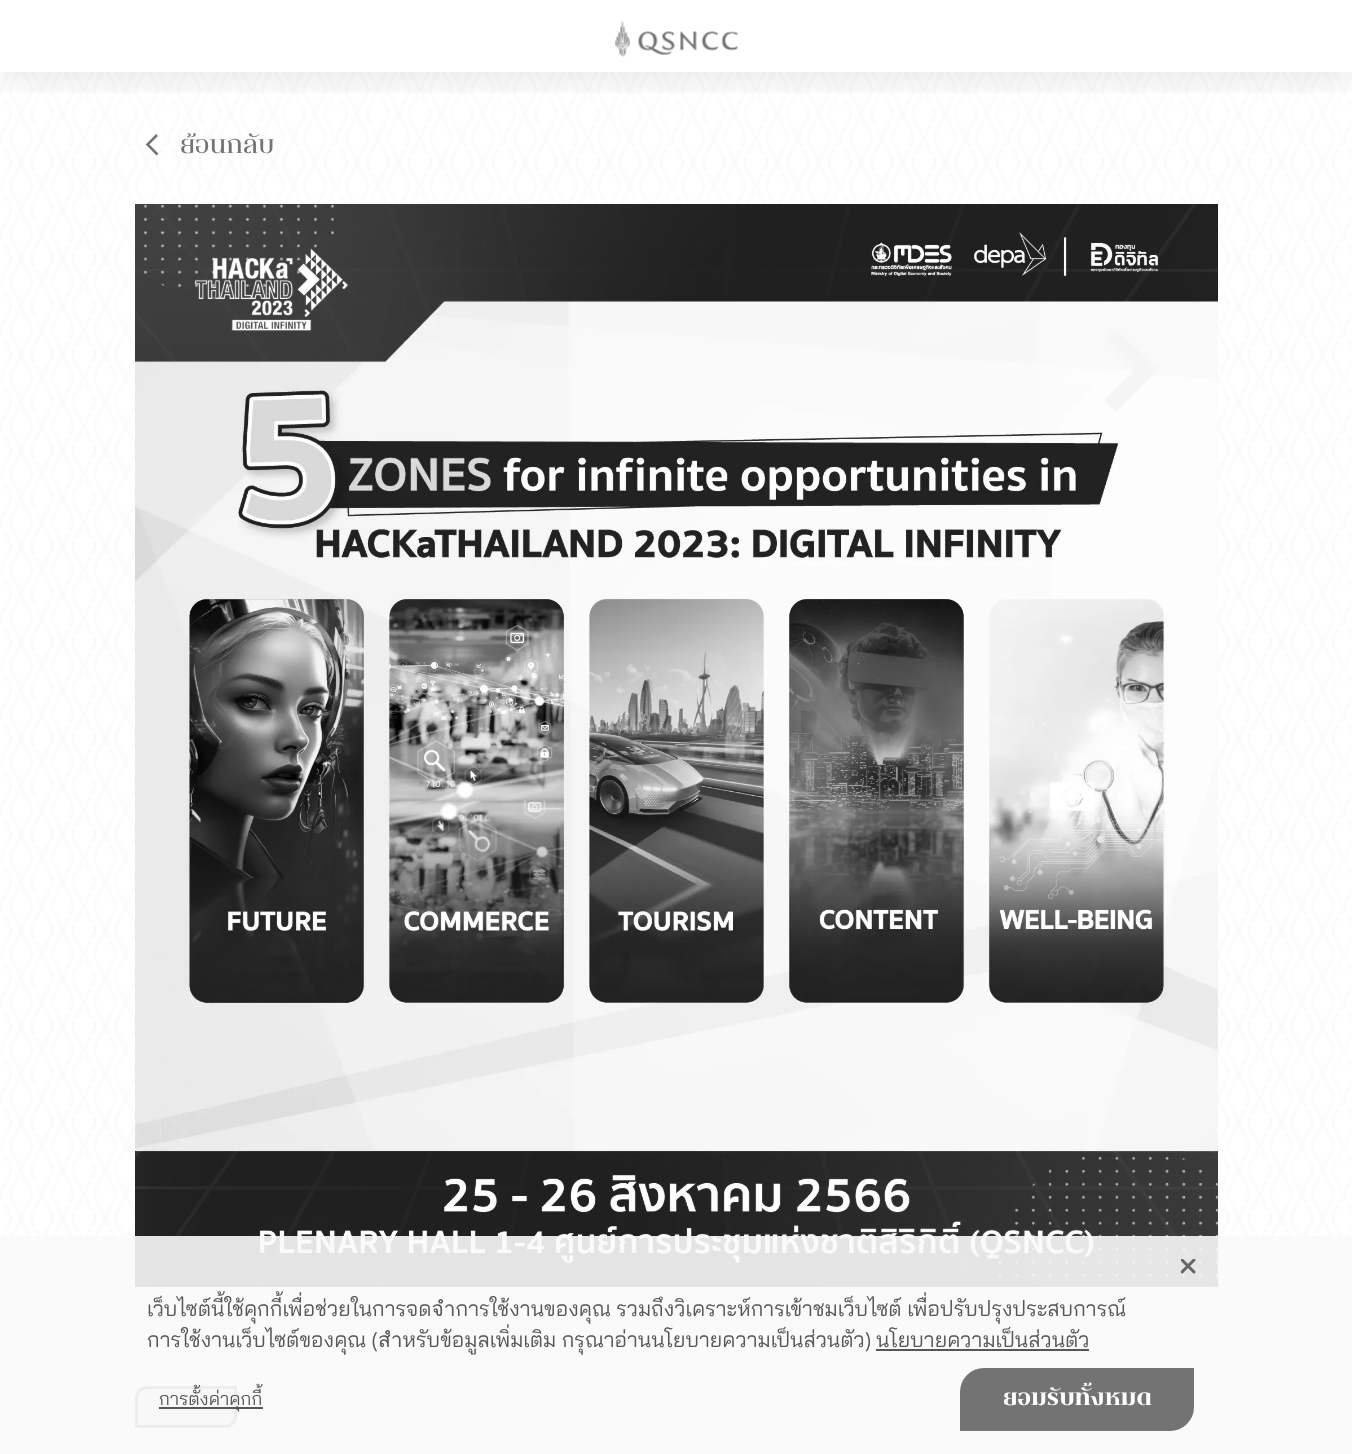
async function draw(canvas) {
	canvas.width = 1352;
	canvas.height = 1454;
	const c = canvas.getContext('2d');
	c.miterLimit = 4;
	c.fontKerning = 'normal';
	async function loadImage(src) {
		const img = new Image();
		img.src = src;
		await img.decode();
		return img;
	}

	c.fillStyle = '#fff';
	c.fillRect(0, 0, 1352, 1454);
	c.drawImage(await loadImage('img1.png'), 0, 72, 1352, 1382);
	c.drawImage(await loadImage('img2.png'), 615, 21, 123, 36);
	c.save();
	c.beginPath();
	c.rect(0, 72, 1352, 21);
	c.clip();
	c.fillStyle = '#00000014';
	c.filter = 'blur(15px)';
	c.beginPath();
	c.rect(0, 11, 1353, 72);
	c.fill();
	c.filter = 'none';
	c.restore();
	c.beginPath();
	c.moveTo(157, 135);
	c.lineTo(147.5, 144.5);
	c.lineTo(157.5, 154.5);
	c.strokeStyle = '#737373';
	c.lineWidth = 2.5;
	c.stroke();
	c.font = '27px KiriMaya';
	c.fillStyle = '#737373';
	c.fillText('ย้อนกลับ', 180, 153);
	c.drawImage(await loadImage('img3.png'), 135, 204, 1083, 1083);
	c.fillStyle = '#e5e5e5';
	c.beginPath();
	c.roundRect(136.5, 1387.5, 99, 39, [10.5, 0, 10.5, 0]);
	c.fill();
	c.strokeStyle = '#7f7f7f';
	c.lineWidth = 3;
	c.stroke();
	c.fillStyle = '#f9f9f9e6';
	c.fillRect(0, 1236, 1352, 218);
	c.drawImage(await loadImage('img4.png'), 1181, 1259, 15, 15);
	c.font = '21px Bai Jamjuree';
	c.fillStyle = '#565656';
	for (const [text, x, y] of [
		['เว็บไซต์นี้ใช้คุกกี้เพื่อช่วยในการจดจำการใช้งานของคุณ รวมถึงวิเคราะห์การเข้าชมเว็บไซต์ เพื่อปรับปรุงประสบการณ์', 147, 1316],
		['การใช้งานเว็บไซต์ของคุณ (สำหรับข้อมูลเพิ่มเติม กรุณาอ่านนโยบายความเป็นส่วนตัว)', 147, 1347],
		['นโยบายความเป็นส่วนตัว', 876, 1347],
	]) {
		c.fillText(text, x, y);
	}
	c.fillRect(876, 1349, 213, 2);
	c.fillRect(159, 1407, 104, 2);
	c.font = '18px Bai Jamjuree';
	c.fillText('การตั้งค่าคุกกี้', 159, 1405);
	c.fillStyle = '#737373';
	c.beginPath();
	c.roundRect(960, 1368, 234, 63, [24, 0, 24, 0]);
	c.fill();
	c.font = 'bold 24px KiriMaya';
	c.fillStyle = '#fefefe';
	c.fillText('ยอมรับทั้งหมด', 1003, 1405);
}

draw(document.querySelector('canvas'));
